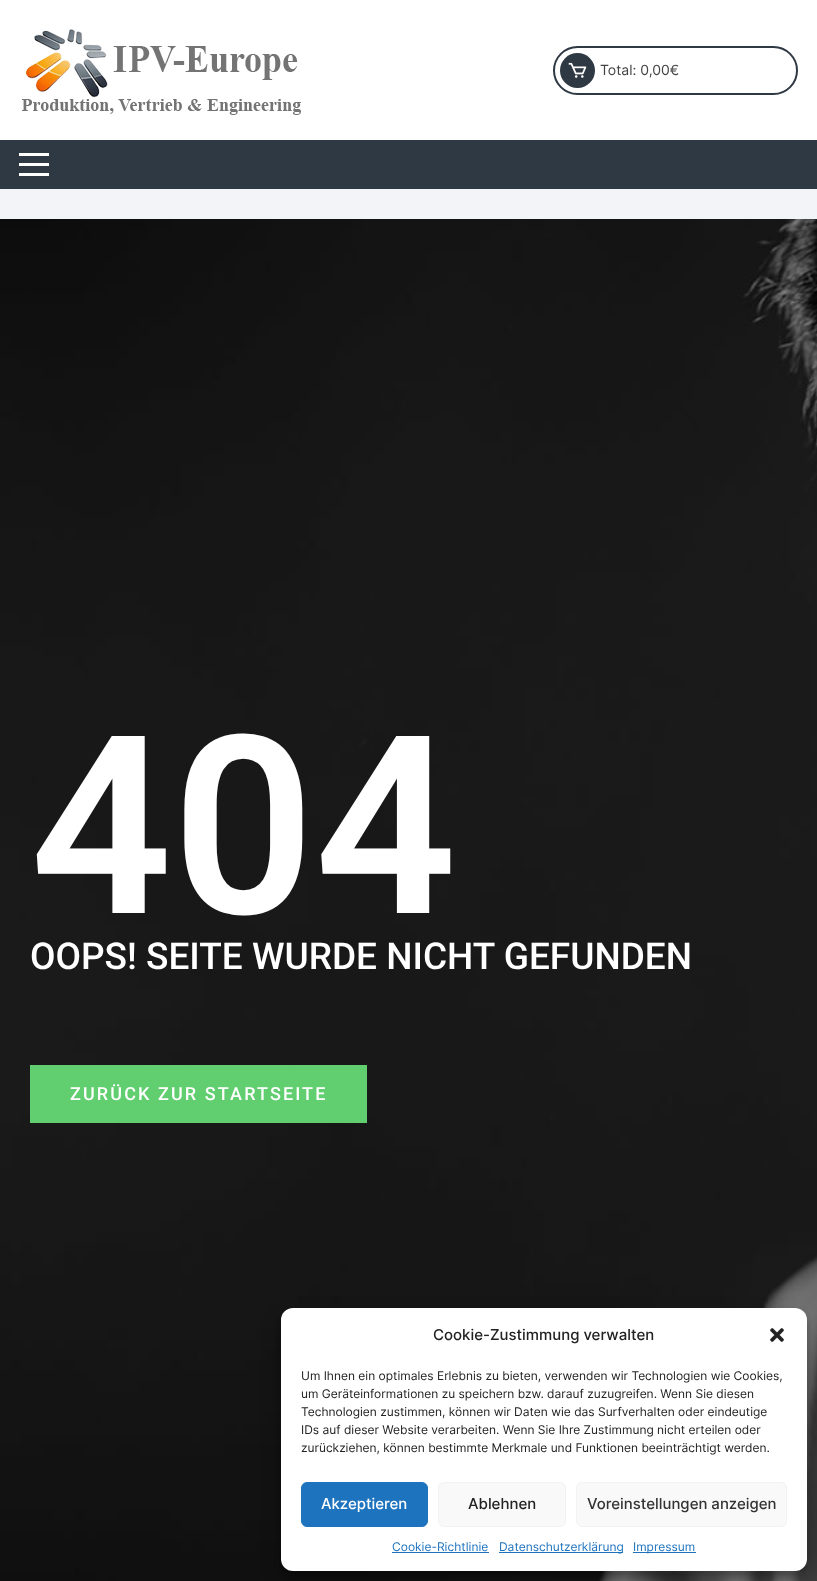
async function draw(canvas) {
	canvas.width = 817;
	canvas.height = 1581;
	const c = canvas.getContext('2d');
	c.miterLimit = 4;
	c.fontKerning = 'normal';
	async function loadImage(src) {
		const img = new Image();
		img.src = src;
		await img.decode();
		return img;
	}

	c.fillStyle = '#f3f4f8';
	c.fillRect(0, 0, 817, 1581);
	c.fillStyle = '#fff';
	c.fillRect(0, 0, 817, 140);
	c.drawImage(await loadImage('img1.png'), 22, 29, 279, 86);
	c.beginPath();
	c.roundRect(554, 47, 243, 47, 23.5);
	c.strokeStyle = '#2f3943';
	c.lineWidth = 2;
	c.stroke();
	c.fillStyle = '#2f3943';
	c.beginPath();
	c.arc(577.5, 70.5, 17.5, 0, 2 * Math.PI);
	c.fill();
	c.drawImage(await loadImage('img2.png'), 568, 62, 19, 16);
	c.font = '14px Inter';
	c.fillStyle = '#444';
	c.fillText('Total: 0,00€', 600, 75);
	for (const [x, y, w, h, color] of [
		[0, 140, 817, 49, '#2f3943'],
		[19, 153, 30, 3, '#fff'],
		[19, 163, 30, 3, '#fff'],
		[19, 173, 30, 3, '#fff'],
	]) {
		c.fillStyle = color;
		c.fillRect(x, y, w, h);
	}
	c.drawImage(await loadImage('img3.png'), 0, 219, 817, 1362);
	c.font = '600 249px Roboto';
	c.fillText('404', 30, 913);
	c.font = '500 37px Roboto';
	c.fillText('OOPS! SEITE WURDE NICHT GEFUNDEN', 30, 969);
	c.fillStyle = '#61ce70';
	c.fillRect(30, 1065, 337, 58);
	c.letterSpacing = '2.1px';
	c.font = '500 18px Roboto';
	c.fillStyle = '#fff';
	c.fillText('ZURÜCK ZUR STARTSEITE', 70, 1100);
	c.fillStyle = '#0000003b';
	c.filter = 'blur(3px)';
	c.beginPath();
	c.roundRect(281, 1314, 526, 263, 12);
	c.fill();
	c.filter = 'none';
	c.fillStyle = '#00000030';
	c.filter = 'blur(10px)';
	c.beginPath();
	c.roundRect(281, 1318, 526, 263, 12);
	c.fill();
	c.filter = 'none';
	c.fillStyle = '#fff';
	c.beginPath();
	c.roundRect(281, 1308, 526, 263, 12);
	c.fill();
	c.letterSpacing = '0px';
	c.font = '500 15px Inter';
	c.fillStyle = '#222';
	c.fillText('Cookie-Zustimmung verwalten', 433, 1340);
	c.drawImage(await loadImage('img4.png'), 770, 1328, 14, 14);
	c.font = '12px Inter';
	for (const [text, x, y] of [
		['Um Ihnen ein optimales Erlebnis zu bieten, verwenden wir Technologien wie Cookies,', 301, 1380],
		['um Geräteinformationen zu speichern bzw. darauf zuzugreifen. Wenn Sie diesen', 301, 1398],
		['Technologien zustimmen, können wir Daten wie das Surfverhalten oder eindeutige', 301, 1416],
		['IDs auf dieser Website verarbeiten. Wenn Sie Ihre Zustimmung nicht erteilen oder', 301, 1434],
		['zurückziehen, können bestimmte Merkmale und Funktionen beeinträchtigt werden.', 301, 1452],
	]) {
		c.fillText(text, x, y);
	}
	c.fillStyle = '#1e73be';
	c.beginPath();
	c.roundRect(301.5, 1482.5, 126, 44, 5.5);
	c.fill();
	c.strokeStyle = '#1e73be';
	c.lineWidth = 1;
	c.stroke();
	c.font = '500 15px Inter';
	c.fillStyle = '#fff';
	c.fillText('Akzeptieren', 321, 1509);
	c.fillStyle = '#f9f9f9';
	c.beginPath();
	c.roundRect(438.5, 1482.5, 127, 44, 5.5);
	c.fill();
	c.strokeStyle = '#f2f2f2';
	c.stroke();
	c.fillStyle = '#222';
	c.fillText('Ablehnen', 468, 1509);
	c.fillStyle = '#f9f9f9';
	c.beginPath();
	c.roundRect(576.5, 1482.5, 210, 44, 5.5);
	c.fill();
	c.stroke();
	c.fillStyle = '#333';
	c.fillText('Voreinstellungen anzeigen', 587, 1509);
	c.font = '12px Inter';
	c.fillStyle = '#1e73be';
	c.fillText('Cookie-Richtlinie', 392, 1551);
	c.fillRect(392, 1552, 97, 1);
	c.fillRect(499, 1552, 124, 1);
	c.fillText('Datenschutzerklärung', 499, 1551);
	c.fillRect(633, 1552, 63, 1);
	c.fillText('Impressum', 633, 1551);
}

draw(document.querySelector('canvas'));
